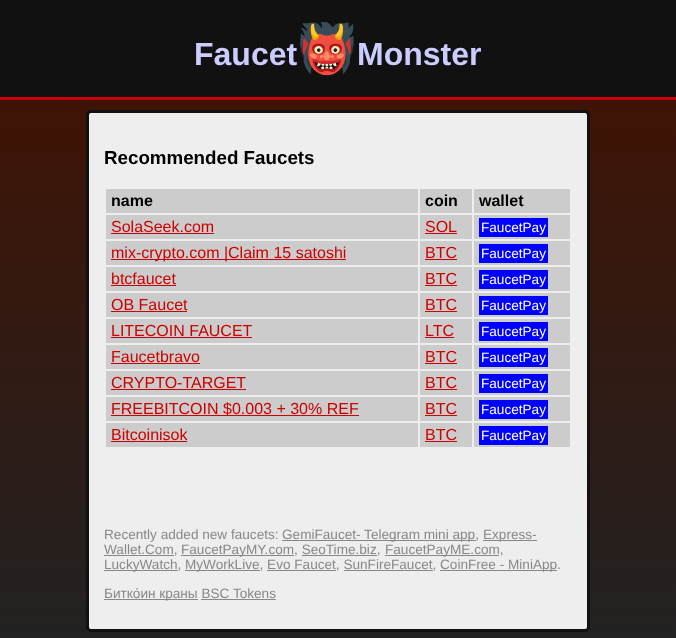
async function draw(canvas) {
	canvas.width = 676;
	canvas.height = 638;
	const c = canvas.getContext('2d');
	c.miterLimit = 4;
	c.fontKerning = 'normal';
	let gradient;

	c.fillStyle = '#fff';
	c.fillRect(0, 0, 676, 638);
	gradient = c.createLinearGradient(338, 0, 338, 638);
	gradient.addColorStop(0, '#410');
	gradient.addColorStop(1, '#222');
	c.fillStyle = gradient;
	c.fillRect(0, 100, 676, 538);
	c.fillStyle = '#111';
	c.fillRect(0, 0, 676, 97);
	c.fillStyle = '#c00';
	c.fillRect(0, 97, 676, 3);
	c.font = 'bold 32px Liberation Sans';
	c.fillStyle = '#ccf';
	c.fillText('Faucet', 194, 65);
	c.font = 'bold 48px Noto Color Emoji';
	c.fillText('👹', 297, 65);
	c.font = 'bold 32px Liberation Sans';
	c.fillText('Monster', 357, 65);
	c.fillStyle = '#eee';
	c.beginPath();
	c.roundRect(87.5, 111.5, 501, 519, 3.5);
	c.fill();
	c.strokeStyle = '#111';
	c.lineWidth = 3;
	c.stroke();
	c.font = 'bold 18.75px Liberation Sans';
	c.fillStyle = '#000';
	c.fillText('Recommended Faucets', 104, 164);
	c.fillStyle = '#ccc';
	c.fillRect(106, 189, 312, 24);
	c.font = 'bold 16px Liberation Sans';
	c.fillStyle = '#000';
	c.fillText('name', 111, 206);
	c.fillStyle = '#ccc';
	c.fillRect(420, 189, 52, 24);
	c.fillStyle = '#000';
	c.fillText('coin', 425, 206);
	c.fillStyle = '#ccc';
	c.fillRect(474, 189, 96, 24);
	c.fillStyle = '#000';
	c.fillText('wallet', 479, 206);
	c.fillStyle = '#ccc';
	c.fillRect(106, 215, 312, 24);
	c.font = '16px Liberation Sans';
	c.fillStyle = '#c00';
	c.fillText('SolaSeek.com', 111, 232);
	c.fillRect(111, 233, 103, 1);
	c.fillStyle = '#ccc';
	c.fillRect(420, 215, 52, 24);
	c.fillStyle = '#c00';
	c.fillText('SOL', 425, 232);
	for (const [x, y, w, h, color] of [
		[425, 233, 32, 1, '#c00'],
		[474, 215, 96, 24, '#ccc'],
		[479, 218, 69, 19, '#00f'],
	]) {
		c.fillStyle = color;
		c.fillRect(x, y, w, h);
	}
	c.font = '13.6px Liberation Sans';
	c.fillStyle = '#fff';
	c.fillText('FaucetPay', 481, 232);
	c.fillStyle = '#ccc';
	c.fillRect(106, 241, 312, 24);
	c.fillStyle = '#c00';
	c.fillRect(111, 259, 235, 1);
	c.font = '16px Liberation Sans';
	c.fillText('mix-crypto.com |Claim 15 satoshi', 111, 258);
	c.fillStyle = '#ccc';
	c.fillRect(420, 241, 52, 24);
	c.fillStyle = '#c00';
	c.fillText('BTC', 425, 258);
	for (const [x, y, w, h, color] of [
		[425, 259, 32, 1, '#c00'],
		[474, 241, 96, 24, '#ccc'],
		[479, 244, 69, 19, '#00f'],
	]) {
		c.fillStyle = color;
		c.fillRect(x, y, w, h);
	}
	c.font = '13.6px Liberation Sans';
	c.fillStyle = '#fff';
	c.fillText('FaucetPay', 481, 258);
	c.fillStyle = '#ccc';
	c.fillRect(106, 267, 312, 24);
	c.font = '16px Liberation Sans';
	c.fillStyle = '#c00';
	c.fillText('btcfaucet', 111, 284);
	c.fillRect(111, 285, 65, 1);
	c.fillStyle = '#ccc';
	c.fillRect(420, 267, 52, 24);
	c.fillStyle = '#c00';
	c.fillText('BTC', 425, 284);
	for (const [x, y, w, h, color] of [
		[425, 285, 32, 1, '#c00'],
		[474, 267, 96, 24, '#ccc'],
		[479, 270, 69, 19, '#00f'],
	]) {
		c.fillStyle = color;
		c.fillRect(x, y, w, h);
	}
	c.font = '13.6px Liberation Sans';
	c.fillStyle = '#fff';
	c.fillText('FaucetPay', 481, 284);
	c.fillStyle = '#ccc';
	c.fillRect(106, 293, 312, 24);
	c.font = '16px Liberation Sans';
	c.fillStyle = '#c00';
	c.fillText('OB Faucet', 111, 310);
	c.fillRect(111, 311, 76, 1);
	c.fillStyle = '#ccc';
	c.fillRect(420, 293, 52, 24);
	c.fillStyle = '#c00';
	c.fillText('BTC', 425, 310);
	for (const [x, y, w, h, color] of [
		[425, 311, 32, 1, '#c00'],
		[474, 293, 96, 24, '#ccc'],
		[479, 296, 69, 19, '#00f'],
	]) {
		c.fillStyle = color;
		c.fillRect(x, y, w, h);
	}
	c.font = '13.6px Liberation Sans';
	c.fillStyle = '#fff';
	c.fillText('FaucetPay', 481, 310);
	c.fillStyle = '#ccc';
	c.fillRect(106, 319, 312, 24);
	c.font = '16px Liberation Sans';
	c.fillStyle = '#c00';
	c.fillText('LITECOIN FAUCET', 111, 336);
	c.fillRect(111, 337, 141, 1);
	c.fillStyle = '#ccc';
	c.fillRect(420, 319, 52, 24);
	c.fillStyle = '#c00';
	c.fillText('LTC', 425, 336);
	for (const [x, y, w, h, color] of [
		[425, 337, 29, 1, '#c00'],
		[474, 319, 96, 24, '#ccc'],
		[479, 322, 69, 19, '#00f'],
	]) {
		c.fillStyle = color;
		c.fillRect(x, y, w, h);
	}
	c.font = '13.6px Liberation Sans';
	c.fillStyle = '#fff';
	c.fillText('FaucetPay', 481, 336);
	c.fillStyle = '#ccc';
	c.fillRect(106, 345, 312, 24);
	c.font = '16px Liberation Sans';
	c.fillStyle = '#c00';
	c.fillText('Faucetbravo', 111, 362);
	c.fillRect(111, 363, 89, 1);
	c.fillStyle = '#ccc';
	c.fillRect(420, 345, 52, 24);
	c.fillStyle = '#c00';
	c.fillText('BTC', 425, 362);
	for (const [x, y, w, h, color] of [
		[425, 363, 32, 1, '#c00'],
		[474, 345, 96, 24, '#ccc'],
		[479, 348, 69, 19, '#00f'],
	]) {
		c.fillStyle = color;
		c.fillRect(x, y, w, h);
	}
	c.font = '13.6px Liberation Sans';
	c.fillStyle = '#fff';
	c.fillText('FaucetPay', 481, 362);
	c.fillStyle = '#ccc';
	c.fillRect(106, 371, 312, 24);
	c.font = '16px Liberation Sans';
	c.fillStyle = '#c00';
	c.fillText('CRYPTO-TARGET', 111, 388);
	c.fillRect(111, 389, 135, 1);
	c.fillStyle = '#ccc';
	c.fillRect(420, 371, 52, 24);
	c.fillStyle = '#c00';
	c.fillText('BTC', 425, 388);
	for (const [x, y, w, h, color] of [
		[425, 389, 32, 1, '#c00'],
		[474, 371, 96, 24, '#ccc'],
		[479, 374, 69, 19, '#00f'],
	]) {
		c.fillStyle = color;
		c.fillRect(x, y, w, h);
	}
	c.font = '13.6px Liberation Sans';
	c.fillStyle = '#fff';
	c.fillText('FaucetPay', 481, 388);
	c.fillStyle = '#ccc';
	c.fillRect(106, 397, 312, 24);
	c.fillStyle = '#c00';
	c.fillRect(111, 415, 248, 1);
	c.font = '16px Liberation Sans';
	c.fillText('FREEBITCOIN $0.003 + 30% REF', 111, 414);
	c.fillStyle = '#ccc';
	c.fillRect(420, 397, 52, 24);
	c.fillStyle = '#c00';
	c.fillText('BTC', 425, 414);
	for (const [x, y, w, h, color] of [
		[425, 415, 32, 1, '#c00'],
		[474, 397, 96, 24, '#ccc'],
		[479, 400, 69, 19, '#00f'],
	]) {
		c.fillStyle = color;
		c.fillRect(x, y, w, h);
	}
	c.font = '13.6px Liberation Sans';
	c.fillStyle = '#fff';
	c.fillText('FaucetPay', 481, 414);
	c.fillStyle = '#ccc';
	c.fillRect(106, 423, 312, 24);
	c.font = '16px Liberation Sans';
	c.fillStyle = '#c00';
	c.fillText('Bitcoinisok', 111, 440);
	c.fillRect(111, 441, 76, 1);
	c.fillStyle = '#ccc';
	c.fillRect(420, 423, 52, 24);
	c.fillStyle = '#c00';
	c.fillText('BTC', 425, 440);
	for (const [x, y, w, h, color] of [
		[425, 441, 32, 1, '#c00'],
		[474, 423, 96, 24, '#ccc'],
		[479, 426, 69, 19, '#00f'],
	]) {
		c.fillStyle = color;
		c.fillRect(x, y, w, h);
	}
	c.font = '13.6px Liberation Sans';
	c.fillStyle = '#fff';
	c.fillText('FaucetPay', 481, 440);
	c.fillStyle = '#888';
	c.fillText('Recently added new faucets:', 104, 539);
	c.fillRect(282, 540, 194, 1);
	c.fillText('GemiFaucet- Telegram mini app,', 282, 539);
	c.fillRect(483, 540, 54, 1);
	c.fillText('Express-', 483, 539);
	c.fillRect(104, 555, 70, 1);
	c.fillText('Wallet.Com,', 104, 554);
	c.fillRect(181, 555, 113, 1);
	c.fillText('FaucetPayMY.com, SeoTime.biz,', 181, 554);
	c.fillRect(385, 555, 114, 1);
	c.fillText('FaucetPayME.com,', 385, 554);
	c.fillRect(302, 555, 75, 1);
	c.fillRect(104, 570, 74, 1);
	c.fillText('LuckyWatch,', 104, 569);
	c.fillRect(185, 570, 75, 1);
	c.fillText('MyWorkLive, Evo Faucet, SunFireFaucet,', 185, 569);
	c.fillRect(440, 570, 117, 1);
	c.fillText('CoinFree - MiniApp.', 440, 569);
	for (const [x, y, w, h, color] of [
		[267, 570, 69, 1, '#888'],
		[344, 570, 89, 1, '#888'],
		[104, 599, 94, 1, '#888'],
	]) {
		c.fillStyle = color;
		c.fillRect(x, y, w, h);
	}
	c.fillText('Битко́ин краны BSC Tokens', 104, 598);
	c.fillRect(201, 599, 75, 1);
}

draw(document.querySelector('canvas'));
